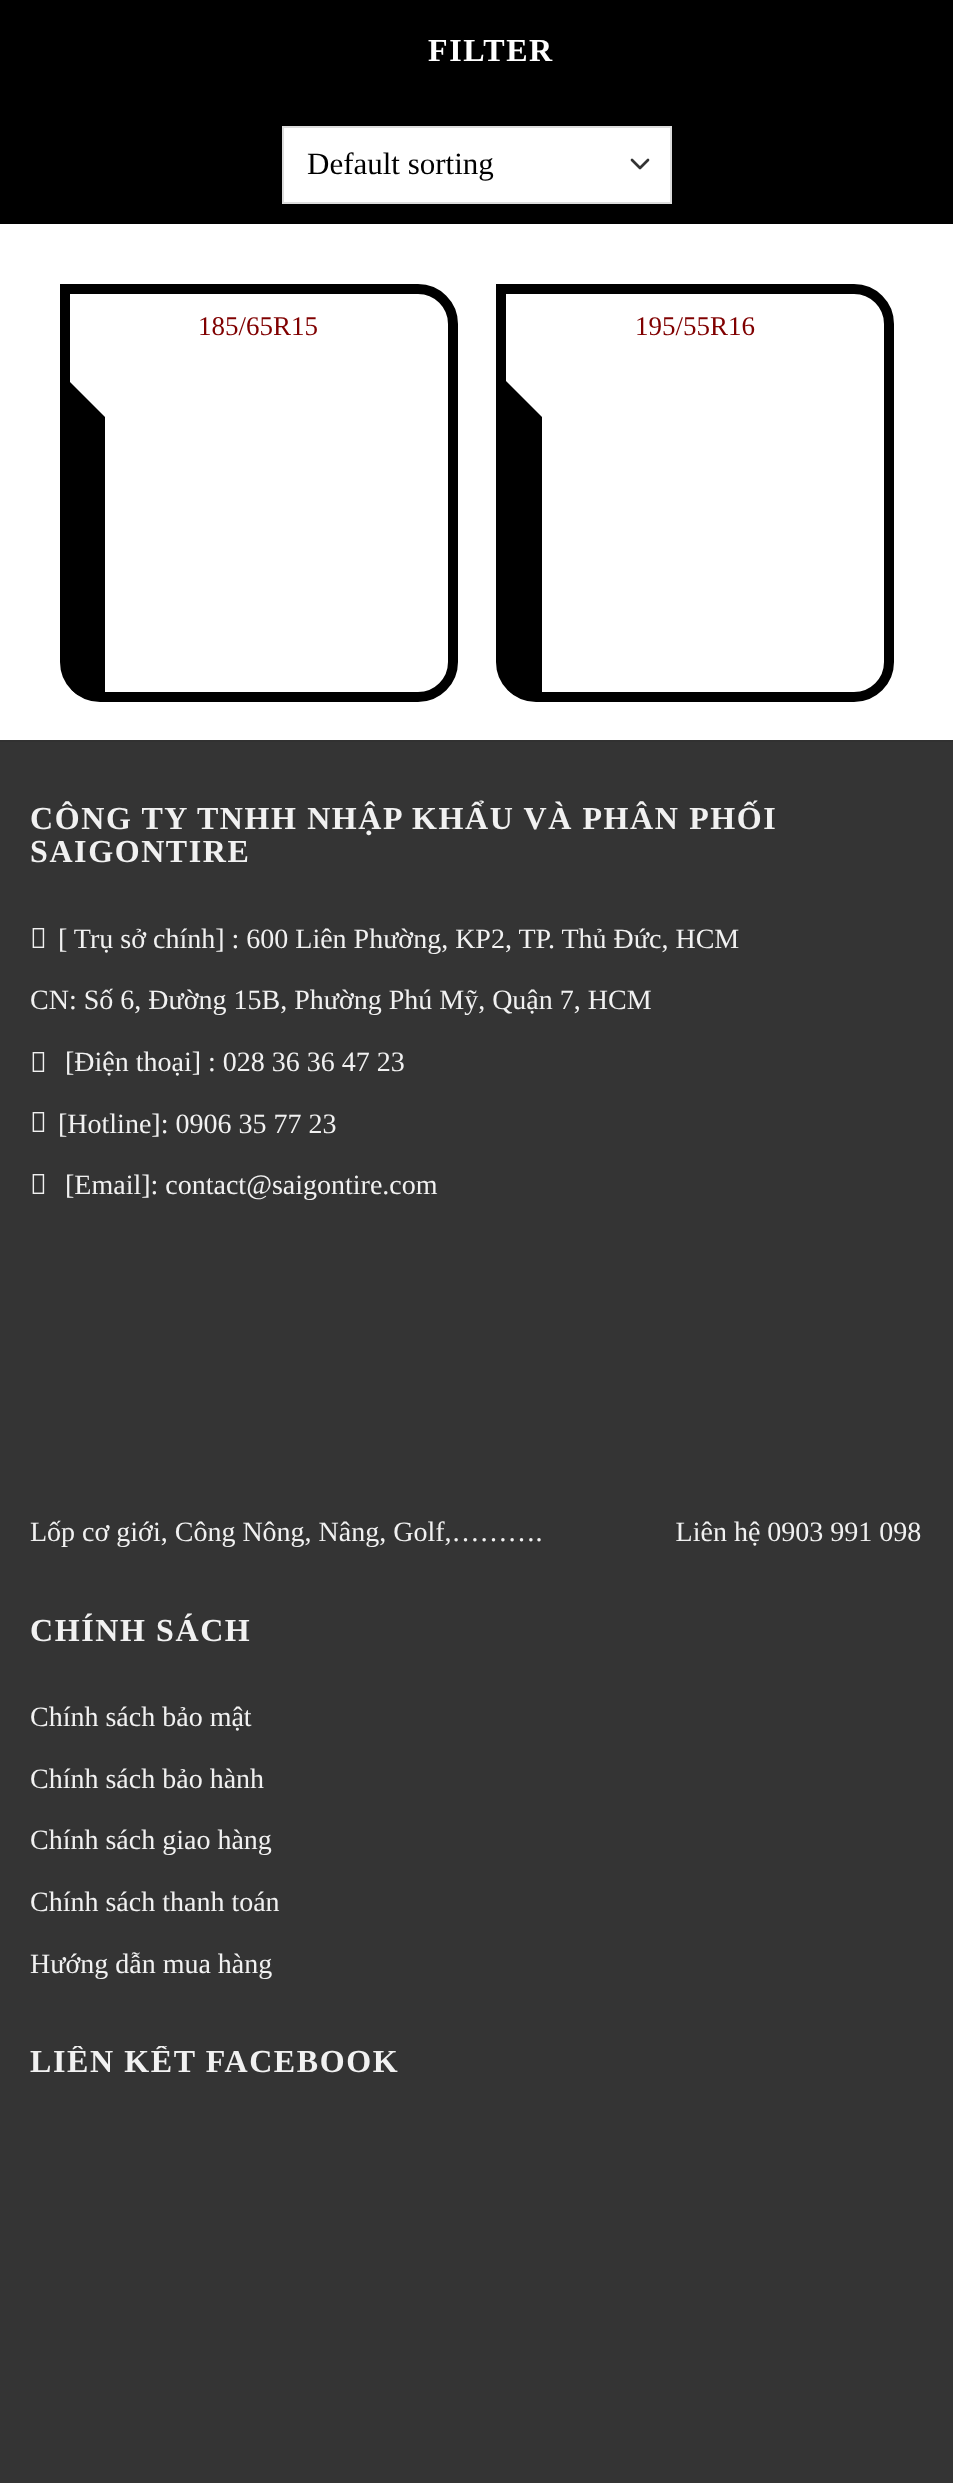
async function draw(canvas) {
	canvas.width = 953;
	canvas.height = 2483;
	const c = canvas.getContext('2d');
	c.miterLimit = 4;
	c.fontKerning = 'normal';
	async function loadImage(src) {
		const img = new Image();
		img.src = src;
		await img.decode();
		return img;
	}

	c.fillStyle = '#fff';
	c.fillRect(0, 0, 953, 2483);
	c.fillStyle = '#000';
	c.fillRect(0, 0, 953, 224);
	c.letterSpacing = '1.6px';
	c.font = 'bold 32px Liberation Serif';
	c.fillStyle = '#fff';
	c.fillText('FILTER', 428, 61);
	c.fillRect(284, 128, 386, 74);
	c.beginPath();
	c.moveTo(632, 160);
	c.lineTo(640, 168);
	c.lineTo(648, 160);
	c.strokeStyle = '#333';
	c.lineWidth = 2.7;
	c.lineCap = 'round';
	c.lineJoin = 'round';
	c.stroke();
	c.strokeStyle = '#ddd';
	c.lineWidth = 2;
	c.lineJoin = 'miter';
	c.strokeRect(283, 127, 388, 76);
	c.letterSpacing = '0px';
	c.font = '31px Liberation Serif';
	c.fillStyle = '#000';
	c.fillText('Default sorting', 307, 174);
	c.beginPath();
	c.roundRect(65, 289, 388, 408, [0, 35, 35, 35]);
	c.strokeStyle = '#000';
	c.lineWidth = 10;
	c.stroke();
	c.beginPath();
	c.moveTo(68, 380);
	c.lineTo(105, 417);
	c.lineTo(105, 698);
	c.lineTo(78, 695);
	c.bezierCurveTo(72, 692, 68, 685, 68, 678);
	c.closePath();
	c.fill();
	c.font = '27px Liberation Serif';
	c.fillStyle = '#800000';
	c.fillText('185/65R15', 198, 335);
	c.beginPath();
	c.roundRect(501, 289, 388, 408, [0, 35, 35, 35]);
	c.stroke();
	c.fillStyle = '#000';
	c.beginPath();
	c.moveTo(505, 683);
	c.lineTo(505, 380);
	c.lineTo(542, 417);
	c.lineTo(542, 697);
	c.lineTo(514, 695);
	c.bezierCurveTo(509, 692, 506, 688, 505, 683);
	c.closePath();
	c.fill();
	c.fillStyle = '#800000';
	c.fillText('195/55R16', 635, 335);
	c.fillStyle = '#343434';
	c.fillRect(0, 742, 953, 1741);
	c.fillStyle = '#313131';
	c.fillRect(0, 740, 953, 2);
	c.letterSpacing = '1.6px';
	c.font = 'bold 32px Liberation Serif';
	c.fillStyle = '#f1f1f1';
	c.fillText('CÔNG TY TNHH NHẬP KHẨU VÀ PHÂN PHỐI', 30, 829);
	c.fillText('SAIGONTIRE', 30, 862);
	c.drawImage(await loadImage('img1.png'), 32, 928, 13, 20);
	c.letterSpacing = '0px';
	c.font = '28px Liberation Serif';
	c.fillText('[ Trụ sở chính] : 600 Liên Phường, KP2, TP. Thủ Đức, HCM', 58, 948);
	c.fillText('CN: Số 6, Đường 15B, Phường Phú Mỹ, Quận 7, HCM', 30, 1009);
	c.drawImage(await loadImage('img1.png'), 32, 1052, 13, 20);
	c.fillText('[Điện thoại] : 028 36 36 47 23', 65, 1071);
	c.drawImage(await loadImage('img1.png'), 32, 1112, 13, 20);
	c.fillText('[Hotline]: 0906 35 77 23', 58, 1133);
	c.drawImage(await loadImage('img1.png'), 32, 1174, 13, 20);
	c.fillText('[Email]: contact@saigontire.com', 65, 1194);
	c.fillText('Lốp cơ giới, Công Nông, Nâng, Golf,……….                   Liên hệ 0903 991 098', 30, 1541);
	c.letterSpacing = '1.6px';
	c.font = 'bold 32px Liberation Serif';
	c.fillText('CHÍNH SÁCH', 30, 1641);
	c.letterSpacing = '0px';
	c.font = '28px Liberation Serif';
	for (const [text, x, y] of [
		['Chính sách bảo mật', 30, 1726],
		['Chính sách bảo hành', 30, 1788],
		['Chính sách giao hàng', 30, 1849],
		['Chính sách thanh toán', 30, 1911],
		['Hướng dẫn mua hàng', 30, 1973],
	]) {
		c.fillText(text, x, y);
	}
	c.save();
	c.beginPath();
	c.rect(0, 2046, 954, 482);
	c.clip();
	c.letterSpacing = '1.6px';
	c.font = 'bold 32px Liberation Serif';
	c.fillText('LIÊN KẾT FACEBOOK', 30, 2072);
	c.restore();
}

draw(document.querySelector('canvas'));
